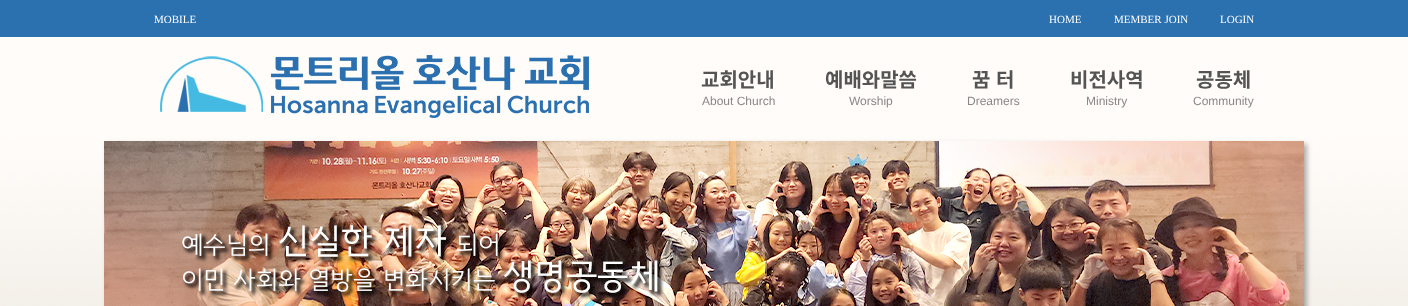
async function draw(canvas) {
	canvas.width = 1408;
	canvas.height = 306;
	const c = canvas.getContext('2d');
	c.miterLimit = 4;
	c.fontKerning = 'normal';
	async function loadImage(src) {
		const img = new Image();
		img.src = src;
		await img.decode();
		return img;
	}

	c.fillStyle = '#fff';
	c.fillRect(0, 0, 1408, 306);
	c.drawImage(await loadImage('img1.png'), 0, 37, 1408, 269);
	c.fillStyle = '#2b70af';
	c.fillRect(0, 0, 1408, 37);
	c.font = '11px Liberation Serif';
	c.fillStyle = '#fff';
	for (const [text, x, y] of [
		['MOBILE', 154, 23],
		['HOME', 1049, 23],
		['MEMBER JOIN', 1114, 23],
		['LOGIN', 1220, 23],
	]) {
		c.fillText(text, x, y);
	}
	c.drawImage(await loadImage('img2.png'), 160, 55, 429, 63);
	c.font = 'bold 20px Noto Sans KR';
	c.fillStyle = '#545454';
	c.fillText('교회안내', 701, 87);
	c.font = '12px Liberation Sans';
	c.fillStyle = '#888';
	c.fillText('About Church', 702, 105);
	c.font = 'bold 20px Noto Sans KR';
	c.fillStyle = '#545454';
	c.fillText('예배와말씀', 825, 87);
	c.font = '12px Liberation Sans';
	c.fillStyle = '#888';
	c.fillText('Worship', 849, 105);
	c.wordSpacing = '1px';
	c.font = 'bold 20px Noto Sans KR';
	c.fillStyle = '#545454';
	c.fillText('꿈 터', 972, 87);
	c.wordSpacing = '0px';
	c.font = '12px Liberation Sans';
	c.fillStyle = '#888';
	c.fillText('Dreamers', 967, 105);
	c.font = 'bold 20px Noto Sans KR';
	c.fillStyle = '#545454';
	c.fillText('비전사역', 1070, 87);
	c.font = '12px Liberation Sans';
	c.fillStyle = '#888';
	c.fillText('Ministry', 1086, 105);
	c.font = 'bold 20px Noto Sans KR';
	c.fillStyle = '#545454';
	c.fillText('공동체', 1196, 87);
	c.font = '12px Liberation Sans';
	c.fillStyle = '#888';
	c.fillText('Community', 1193, 105);
	c.fillStyle = '#37373766';
	c.filter = 'blur(2.5px)';
	c.beginPath();
	c.rect(107, 144, 1200, 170);
	c.fill();
	c.filter = 'none';
	c.drawImage(await loadImage('img3.png'), 104, 141, 1200, 165);
}

draw(document.querySelector('canvas'));
